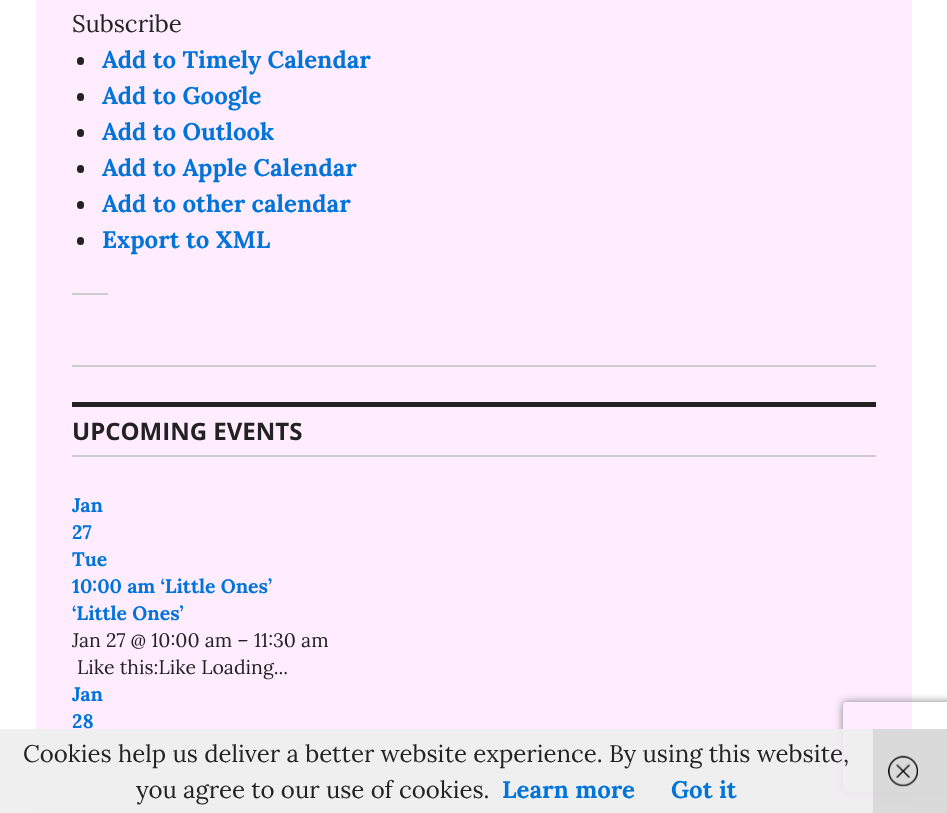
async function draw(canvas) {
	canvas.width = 947;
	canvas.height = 813;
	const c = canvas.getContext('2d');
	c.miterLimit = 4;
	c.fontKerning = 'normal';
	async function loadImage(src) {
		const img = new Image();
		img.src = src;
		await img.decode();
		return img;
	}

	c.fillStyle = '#fff';
	c.fillRect(0, 0, 947, 813);
	c.fillStyle = '#ffedff';
	c.fillRect(36, 0, 876, 813);
	c.fillStyle = '#ccc';
	c.fillRect(72, 365, 804, 2);
	c.font = '24px Lora';
	c.fillStyle = '#222';
	c.fillText('Subscribe', 72, 32);
	c.beginPath();
	c.roundRect(77, 57, 7, 8, 3.5);
	c.fill();
	c.font = 'bold 24px Lora';
	c.fillStyle = '#0074d9';
	c.fillText('Add to Timely Calendar', 102, 68);
	c.fillStyle = '#222';
	c.beginPath();
	c.roundRect(77, 93, 7, 8, 3.5);
	c.fill();
	c.fillStyle = '#0074d9';
	c.fillText('Add to Google', 102, 104);
	c.fillStyle = '#222';
	c.beginPath();
	c.roundRect(77, 129, 7, 8, 3.5);
	c.fill();
	c.fillStyle = '#0074d9';
	c.fillText('Add to Outlook', 102, 140);
	c.fillStyle = '#222';
	c.beginPath();
	c.roundRect(77, 165, 7, 8, 3.5);
	c.fill();
	c.fillStyle = '#0074d9';
	c.fillText('Add to Apple Calendar', 102, 176);
	c.fillStyle = '#222';
	c.beginPath();
	c.roundRect(77, 201, 7, 8, 3.5);
	c.fill();
	c.fillStyle = '#0074d9';
	c.fillText('Add to other calendar', 102, 212);
	c.fillStyle = '#222';
	c.beginPath();
	c.roundRect(77, 237, 7, 8, 3.5);
	c.fill();
	c.fillStyle = '#0074d9';
	c.fillText('Export to XML', 102, 248);
	for (const [x, y, w, h, color] of [
		[72, 293, 36, 2, '#ccc'],
		[72, 402, 804, 5, '#222'],
		[72, 455, 804, 2, '#ccc'],
	]) {
		c.fillStyle = color;
		c.fillRect(x, y, w, h);
	}
	c.font = 'bold 24px Open Sans';
	c.fillStyle = '#222';
	c.fillText('UPCOMING EVENTS', 72, 440);
	c.font = 'bold 19.5px Lora';
	c.fillStyle = '#0074d9';
	for (const [text, x, y] of [
		['Jan', 72, 512],
		['27', 72, 539],
		['Tue', 72, 566],
		['10:00 am ‘Little Ones’', 72, 593],
		['‘Little Ones’', 72, 620],
	]) {
		c.fillText(text, x, y);
	}
	c.font = '19.5px Lora';
	c.fillStyle = '#222';
	c.fillText('Jan 27 @ 10:00 am – 11:30 am', 72, 647);
	c.fillText('Like this:Like Loading...', 77, 674);
	c.font = 'bold 19.5px Lora';
	c.fillStyle = '#0074d9';
	c.fillText('Jan', 72, 701);
	c.fillText('28', 72, 728);
	c.save();
	c.beginPath();
	c.moveTo(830, 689);
	c.lineTo(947, 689);
	c.lineTo(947, 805);
	c.lineTo(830, 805);
	c.closePath();
	c.moveTo(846, 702);
	c.lineTo(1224, 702);
	c.bezierCurveTo(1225.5, 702, 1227, 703.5, 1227, 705);
	c.lineTo(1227, 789);
	c.bezierCurveTo(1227, 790.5, 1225.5, 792, 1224, 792);
	c.lineTo(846, 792);
	c.bezierCurveTo(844.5, 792, 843, 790.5, 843, 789);
	c.lineTo(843, 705);
	c.bezierCurveTo(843, 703.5, 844.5, 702, 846, 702);
	c.closePath();
	c.clip('evenodd');
	c.fillStyle = '#808080';
	c.filter = 'blur(4px)';
	c.beginPath();
	c.roundRect(843, 702, 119, 90, 3);
	c.fill();
	c.filter = 'none';
	c.restore();
	c.fillStyle = '#eeeeeee6';
	c.fillRect(0, 729, 947, 84);
	c.font = '24px Lora';
	c.fillStyle = '#222';
	c.fillText('Cookies help us deliver a better website experience. By using this website,', 23, 762);
	c.fillText('you agree to our use of cookies.', 136, 798);
	c.font = 'bold 24px Lora';
	c.fillStyle = '#0074d9';
	c.fillText('Learn more', 502, 798);
	c.fillText('Got it', 671, 798);
	c.fillStyle = '#cccccc99';
	c.fillRect(873, 729, 74, 84);
	c.drawImage(await loadImage('img1.png'), 888, 755, 30, 32);
}

draw(document.querySelector('canvas'));
